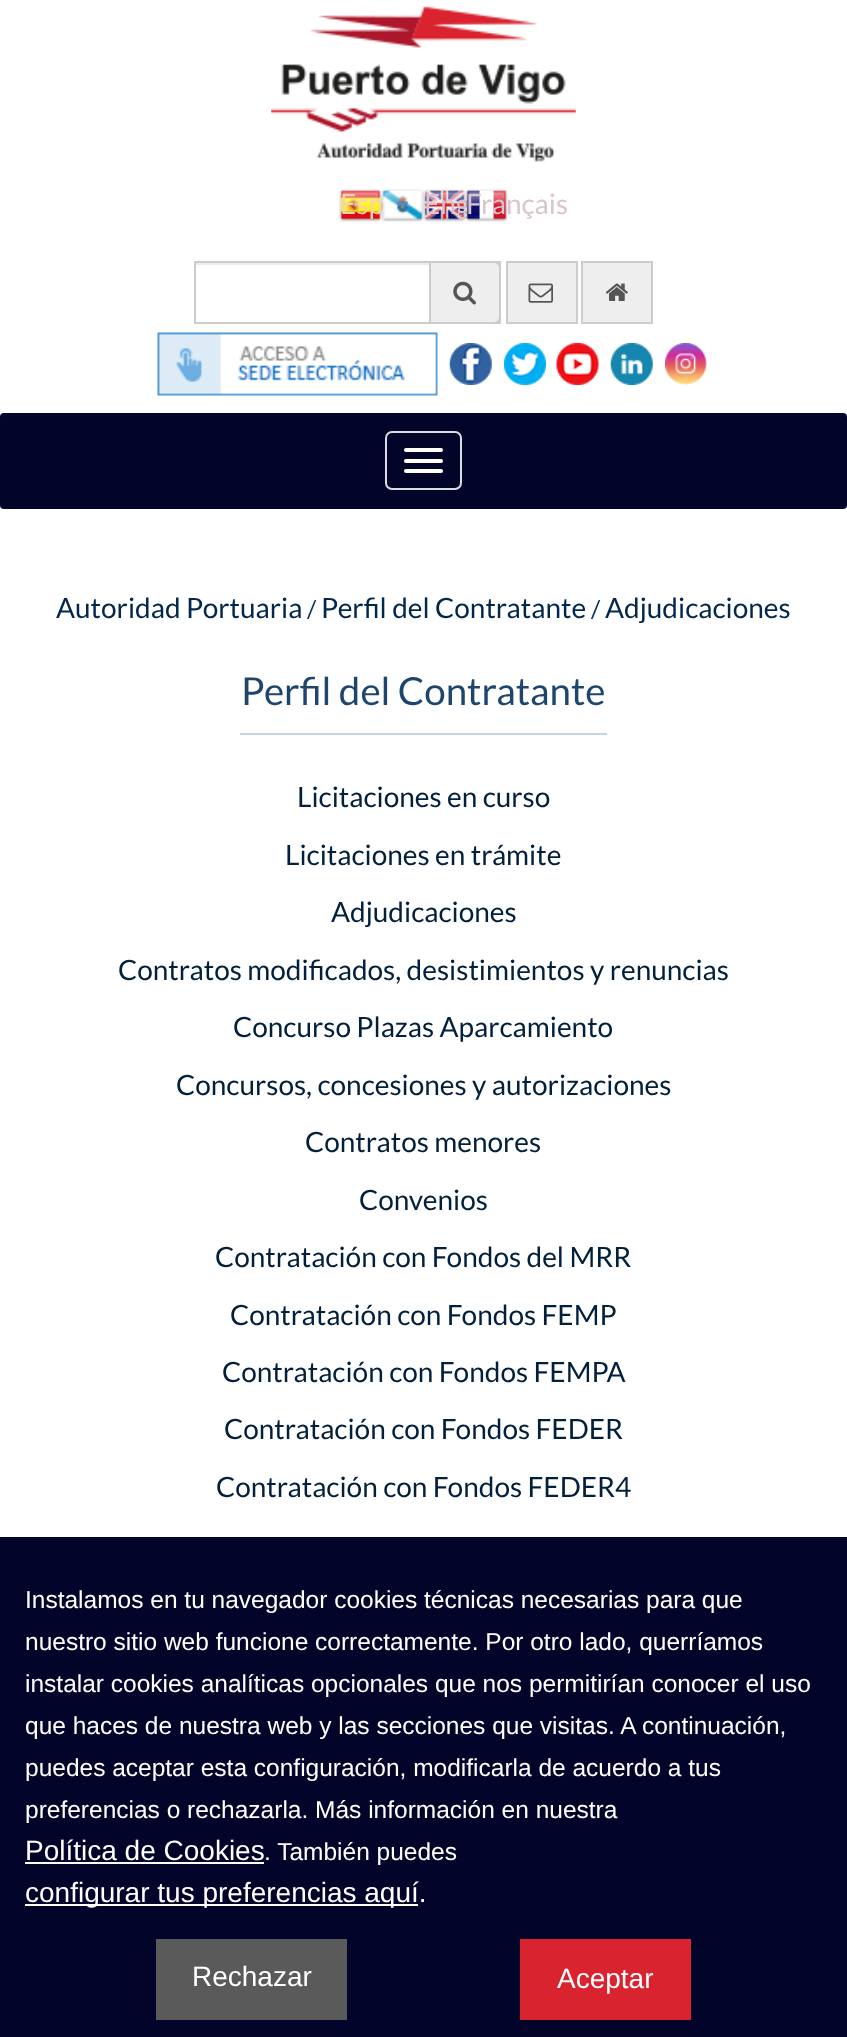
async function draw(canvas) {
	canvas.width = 847;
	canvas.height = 2037;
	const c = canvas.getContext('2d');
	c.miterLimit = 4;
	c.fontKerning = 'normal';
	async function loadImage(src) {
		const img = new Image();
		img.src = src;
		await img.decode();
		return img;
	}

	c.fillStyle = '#fff';
	c.fillRect(0, 0, 847, 2037);
	c.drawImage(await loadImage('img1.png'), 271, 6, 305, 156);
	c.drawImage(await loadImage('img2.png'), 339, 189, 43, 33);
	c.font = '28px Lato';
	c.fillStyle = '#f8d5a5';
	c.fillText('Esp', 340, 214);
	c.drawImage(await loadImage('img3.png'), 381, 189, 43, 33);
	c.drawImage(await loadImage('img4.png'), 423, 189, 43, 33);
	c.fillStyle = '#dcc4ce';
	c.fillText('Eng', 424, 214);
	c.drawImage(await loadImage('img5.png'), 465, 189, 43, 33);
	c.fillText('Français', 466, 214);
	c.fillStyle = '#ececec';
	c.fillRect(196, 263, 233, 2);
	c.strokeStyle = '#ccc';
	c.lineWidth = 2;
	c.strokeRect(195, 262, 305, 61);
	c.fillStyle = '#eee';
	c.beginPath();
	c.roundRect(430, 262, 70, 61, [0, 6, 6, 0]);
	c.fill();
	c.stroke();
	c.drawImage(await loadImage('img6.png'), 453, 281, 23, 24);
	c.beginPath();
	c.rect(507, 262, 70, 61);
	c.fill();
	c.stroke();
	c.drawImage(await loadImage('img7.png'), 528, 283, 25, 20);
	c.beginPath();
	c.rect(582, 262, 70, 61);
	c.fill();
	c.stroke();
	c.drawImage(await loadImage('img8.png'), 605, 283, 23, 18);
	c.drawImage(await loadImage('img9.png'), 157, 332, 281, 64);
	c.drawImage(await loadImage('img10.png'), 449, 343, 43, 42);
	c.drawImage(await loadImage('img11.png'), 504, 343, 42, 42);
	c.drawImage(await loadImage('img12.png'), 556, 343, 43, 42);
	c.drawImage(await loadImage('img13.png'), 610, 343, 43, 42);
	c.drawImage(await loadImage('img14.png'), 665, 343, 42, 42);
	c.fillStyle = '#03042a';
	c.beginPath();
	c.roundRect(0, 413, 847, 96, 4);
	c.fill();
	c.beginPath();
	c.roundRect(386, 432, 75, 57, 6);
	c.strokeStyle = '#ddd';
	c.stroke();
	c.fillStyle = '#fff';
	c.beginPath();
	c.roundRect(404, 448, 39, 4, 2);
	c.fill();
	c.beginPath();
	c.roundRect(404, 459, 39, 4, 2);
	c.fill();
	c.beginPath();
	c.roundRect(404, 469, 39, 4, 2);
	c.fill();
	c.fillStyle = '#01274f';
	c.fillText('Autoridad Portuaria', 56, 618);
	c.font = '24.5px Lato';
	c.fillStyle = '#0e3357';
	c.fillText('/', 307, 618);
	c.font = '28px Lato';
	c.fillStyle = '#01274f';
	c.fillText('Perfil del Contratante', 321, 618);
	c.font = '24.5px Lato';
	c.fillStyle = '#0e3357';
	c.fillText('/', 591, 618);
	c.font = '28px Lato';
	c.fillStyle = '#01274f';
	c.fillText('Adjudicaciones', 605, 618);
	c.font = '38.5px Lato';
	c.fillStyle = '#1e466d';
	c.fillText('Perfil del Contratante', 241, 705);
	c.fillStyle = '#c3d4e6';
	c.fillRect(240, 733, 367, 2);
	c.font = '28px Lato';
	c.fillStyle = '#021f3c';
	for (const [text, x, y] of [
		['Licitaciones en curso', 297, 807],
		['Licitaciones en trámite', 285, 865],
		['Adjudicaciones', 331, 922],
		['Contratos modificados, desistimientos y renuncias', 118, 980],
		['Concurso Plazas Aparcamiento', 233, 1037],
		['Concursos, concesiones y autorizaciones', 176, 1095],
		['Contratos menores', 305, 1152],
		['Convenios', 359, 1210],
		['Contratación con Fondos del MRR', 215, 1267],
		['Contratación con Fondos FEMP', 230, 1325],
		['Contratación con Fondos FEMPA', 222, 1382],
		['Contratación con Fondos FEDER', 224, 1439],
		['Contratación con Fondos FEDER4', 216, 1497],
	]) {
		c.fillText(text, x, y);
	}
	c.fillStyle = '#03042a';
	c.fillRect(0, 1537, 847, 500);
	c.font = '24.5px Liberation Sans';
	c.fillStyle = '#fff';
	for (const [text, x, y] of [
		['Instalamos en tu navegador cookies técnicas necesarias para que', 25, 1608],
		['nuestro sitio web funcione correctamente. Por otro lado, querríamos', 25, 1650],
		['instalar cookies analíticas opcionales que nos permitirían conocer el uso', 25, 1692],
		['que haces de nuestra web y las secciones que visitas. A continuación,', 25, 1734],
		['puedes aceptar esta configuración, modificarla de acuerdo a tus', 25, 1776],
		['preferencias o rechazarla. Más información en nuestra', 25, 1818],
	]) {
		c.fillText(text, x, y);
	}
	c.font = '28px Liberation Sans';
	c.fillText('Política de Cookies', 25, 1860);
	c.fillRect(25, 1862, 239, 2);
	c.font = '24.5px Liberation Sans';
	c.fillText('. También puedes', 264, 1860);
	c.fillRect(25, 1904, 393, 2);
	c.font = '28px Liberation Sans';
	c.fillText('configurar tus preferencias aquí.', 25, 1902);
	c.fillStyle = '#5a5a5a';
	c.fillRect(156, 1939, 191, 81);
	c.fillStyle = '#fff';
	c.fillText('Rechazar', 192, 1986);
	c.fillStyle = '#d9232e';
	c.fillRect(520, 1939, 171, 81);
	c.fillStyle = '#fff';
	c.fillText('Aceptar', 557, 1988);
}

draw(document.querySelector('canvas'));
